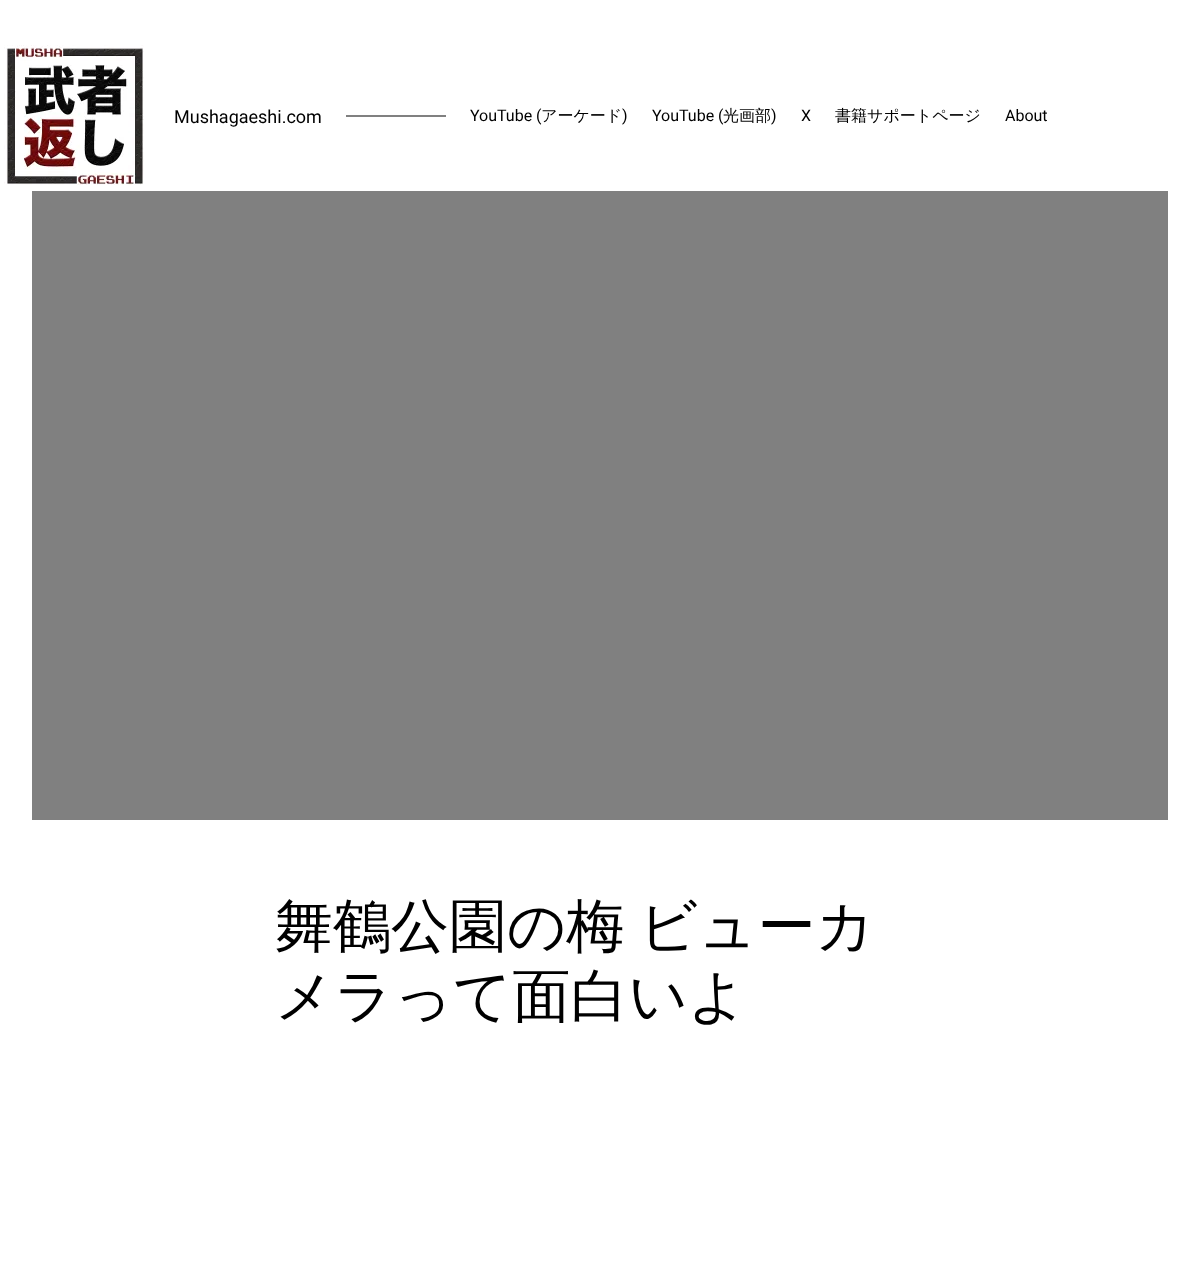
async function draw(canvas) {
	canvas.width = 1200;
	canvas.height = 1288;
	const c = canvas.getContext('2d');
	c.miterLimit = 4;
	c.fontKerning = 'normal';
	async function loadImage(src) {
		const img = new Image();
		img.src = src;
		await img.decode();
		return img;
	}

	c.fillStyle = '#fff';
	c.fillRect(0, 0, 1200, 1288);
	c.drawImage(await loadImage('img1.png'), 4, 45, 140, 140);
	c.font = '18px Roboto';
	c.fillStyle = '#000';
	c.fillText('Mushagaeshi.com', 174, 123);
	c.fillStyle = '#808080';
	c.fillRect(346, 115, 100, 2);
	c.font = '16px Roboto';
	c.fillStyle = '#000';
	c.fillText('YouTube (', 470, 121);
	c.font = '500 16px WenQuanYi Zen Hei';
	c.fillText('アーケード', 541, 121);
	c.font = '16px Roboto';
	c.fillText(')', 622, 121);
	c.fillText('YouTube (', 652, 121);
	c.font = '500 16px WenQuanYi Zen Hei';
	c.fillText('光画部', 723, 121);
	c.font = '16px Roboto';
	c.fillText(')', 771, 121);
	c.fillText('X', 801, 121);
	c.font = '500 16px WenQuanYi Zen Hei';
	c.fillText('書籍サポートページ', 835, 121);
	c.font = '16px Roboto';
	c.fillText('About', 1005, 121);
	c.fillStyle = '#808080';
	c.fillRect(32, 191, 1136, 629);
	c.wordSpacing = '-3px';
	c.font = '500 58px WenQuanYi Zen Hei';
	c.fillStyle = '#000';
	c.fillText('舞鶴公園の梅 ビューカ', 275, 946);
	c.wordSpacing = '0px';
	c.fillText('メラって面白いよ', 275, 1016);
}

draw(document.querySelector('canvas'));
